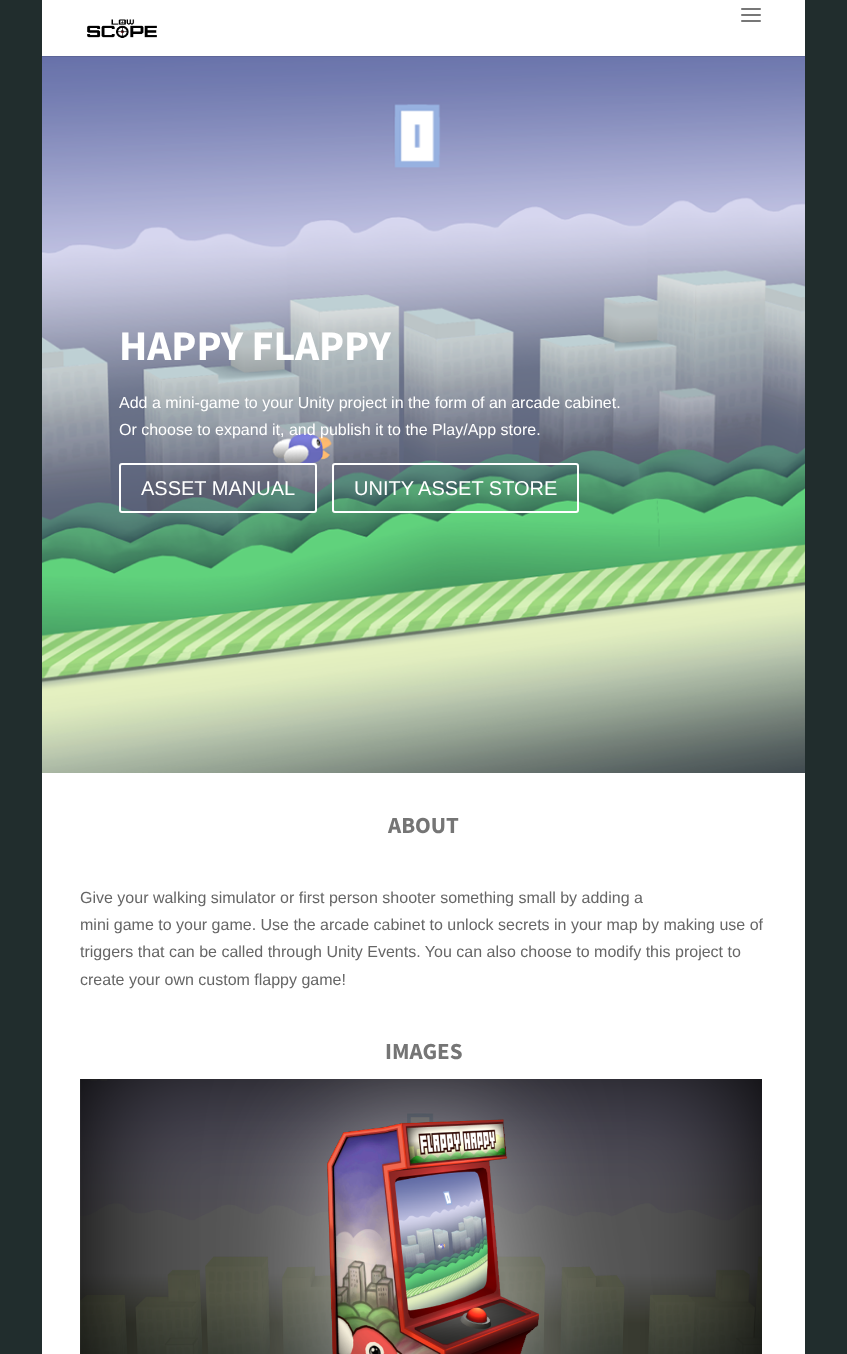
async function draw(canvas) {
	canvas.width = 847;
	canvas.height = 1354;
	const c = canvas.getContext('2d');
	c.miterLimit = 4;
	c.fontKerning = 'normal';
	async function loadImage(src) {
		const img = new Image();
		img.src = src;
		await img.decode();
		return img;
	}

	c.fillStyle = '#212d2d';
	c.fillRect(0, 0, 847, 1354);
	c.drawImage(await loadImage('img3.png'), 42, 56, 763, 717);
	c.fillStyle = '#0000001a';
	c.fillRect(42, 56, 763, 1);
	c.fillStyle = '#fff';
	c.fillRect(42, 0, 763, 56);
	c.drawImage(await loadImage('img1.png'), 741, 8, 20, 14);
	c.drawImage(await loadImage('img2.png'), 87, 19, 70, 19);
	c.font = 'bold 42px Mada';
	c.fillText('HAPPY FLAPPY', 119, 360);
	c.font = '16px Liberation Sans';
	c.fillText('Add a mini-game to your Unity project in the form of an arcade cabinet.', 119, 408);
	c.fillText('Or choose to expand it, and publish it to the Play/App store.', 119, 435);
	c.beginPath();
	c.roundRect(120, 464, 196, 48, 2);
	c.strokeStyle = '#fff';
	c.lineWidth = 2;
	c.stroke();
	c.font = '20px Liberation Sans';
	c.fillText('ASSET MANUAL', 141, 495);
	c.beginPath();
	c.roundRect(333, 464, 245, 48, 2);
	c.stroke();
	c.fillText('UNITY ASSET STORE', 354, 495);
	c.fillRect(42, 773, 763, 581);
	c.font = 'bold 23px Mada';
	c.fillStyle = '#757575';
	c.fillText('ABOUT', 388, 833);
	c.font = '16px Liberation Sans';
	c.fillStyle = '#666';
	for (const [text, x, y] of [
		['Give your walking simulator or first person shooter something small by adding a', 80, 903],
		['mini game to your game. Use the arcade cabinet to unlock secrets in your map by making use of', 80, 930],
		['triggers that can be called through Unity Events. You can also choose to modify this project to', 80, 957],
		['create your own custom flappy game!', 80, 985],
	]) {
		c.fillText(text, x, y);
	}
	c.font = 'bold 23px Mada';
	c.fillStyle = '#757575';
	c.fillText('IMAGES', 385, 1059);
	c.drawImage(await loadImage('img4.png'), 80, 1079, 682, 275);
}

draw(document.querySelector('canvas'));
